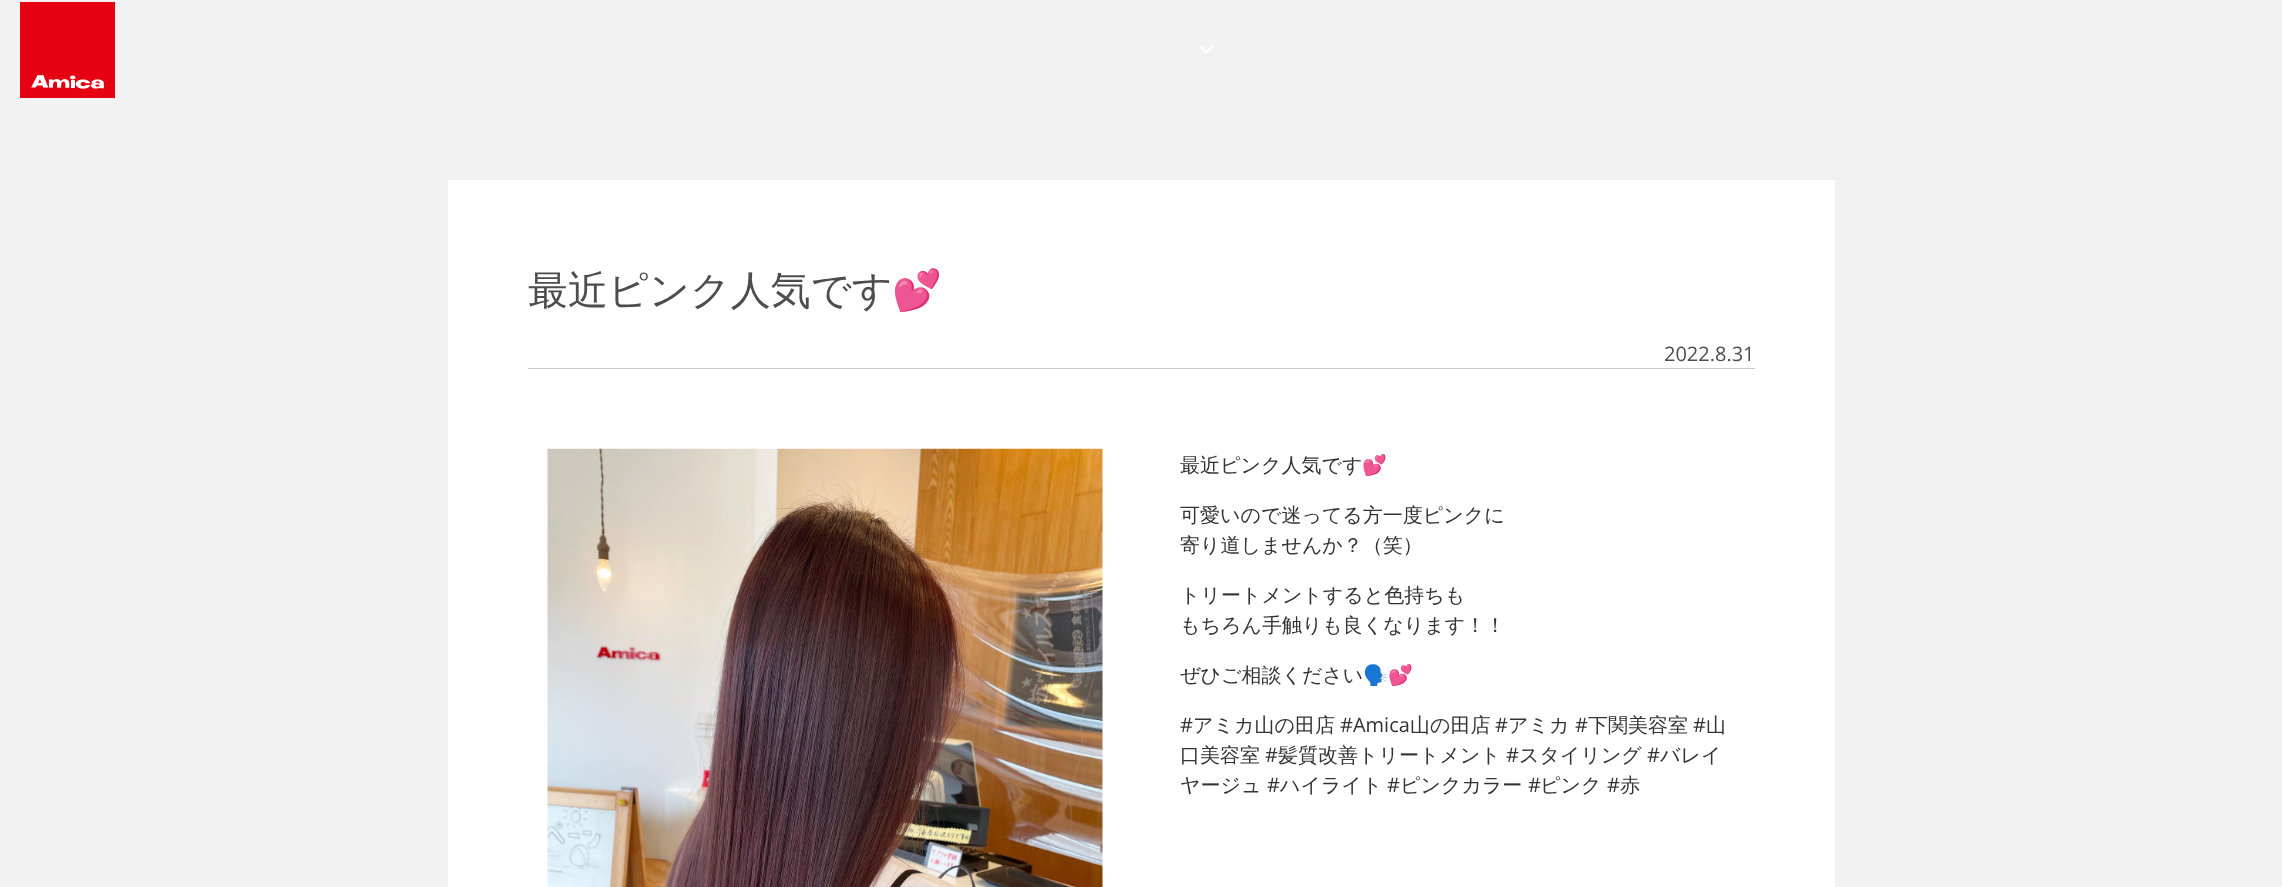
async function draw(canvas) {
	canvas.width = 2282;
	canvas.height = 887;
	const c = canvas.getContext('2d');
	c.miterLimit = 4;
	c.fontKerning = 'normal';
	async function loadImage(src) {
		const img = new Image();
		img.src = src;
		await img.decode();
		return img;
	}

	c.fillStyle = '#f2f2f2';
	c.fillRect(0, 0, 2282, 887);
	c.drawImage(await loadImage('img1.png'), 20, 2, 95, 96);
	c.drawImage(await loadImage('img2.png'), 1200, 46, 13, 8);
	c.fillStyle = '#fff';
	c.fillRect(448, 180, 1387, 707);
	c.font = '500 40px WenQuanYi Zen Hei';
	c.fillStyle = '#4d4d4d';
	c.fillText('最近ピンク人気です', 528, 304);
	c.font = '40px Noto Color Emoji';
	c.fillText('💕', 892, 304);
	c.fillStyle = '#c8c8c8';
	c.fillRect(528, 368, 1227, 1);
	c.font = '20px Open Sans';
	c.fillStyle = '#4d4d4d';
	c.fillText('2022.8.31', 1664, 361);
	c.drawImage(await loadImage('img3.png'), 547, 448, 556, 439);
	c.font = '500 20px WenQuanYi Zen Hei';
	c.fillStyle = '#333';
	c.fillText('最近ピンク人気です', 1180, 472);
	c.font = '20px Noto Color Emoji';
	c.fillText('💕', 1362, 472);
	c.font = '500 20px WenQuanYi Zen Hei';
	for (const [text, x, y] of [
		['可愛いので迷ってる方一度ピンクに', 1180, 522],
		['寄り道しませんか？（笑）', 1180, 552],
		['トリートメントすると色持ちも', 1180, 602],
		['もちろん手触りも良くなります！！', 1180, 632],
		['ぜひご相談ください', 1180, 682],
	]) {
		c.fillText(text, x, y);
	}
	c.font = '20px Noto Color Emoji';
	c.fillText('🗣💕', 1363, 682);
	c.font = '20px Open Sans';
	c.fillText('#', 1180, 732);
	c.font = '500 20px WenQuanYi Zen Hei';
	c.fillText('アミカ山の田店', 1193, 732);
	c.font = '20px Open Sans';
	c.fillText('#Amica', 1340, 732);
	c.font = '500 20px WenQuanYi Zen Hei';
	c.fillText('山の田店', 1410, 732);
	c.font = '20px Open Sans';
	c.fillText('#', 1495, 732);
	c.font = '500 20px WenQuanYi Zen Hei';
	c.fillText('アミカ', 1508, 732);
	c.font = '20px Open Sans';
	c.fillText('#', 1575, 732);
	c.font = '500 20px WenQuanYi Zen Hei';
	c.fillText('下関美容室', 1588, 732);
	c.font = '20px Open Sans';
	c.fillText('#', 1693, 732);
	c.font = '500 20px WenQuanYi Zen Hei';
	c.fillText('山', 1706, 732);
	c.fillText('口美容室', 1180, 762);
	c.font = '20px Open Sans';
	c.fillText('#', 1265, 762);
	c.font = '500 20px WenQuanYi Zen Hei';
	c.fillText('髪質改善トリートメント', 1278, 762);
	c.font = '20px Open Sans';
	c.fillText('#', 1506, 762);
	c.font = '500 20px WenQuanYi Zen Hei';
	c.fillText('スタイリング', 1519, 762);
	c.font = '20px Open Sans';
	c.fillText('#', 1647, 762);
	c.font = '500 20px WenQuanYi Zen Hei';
	c.fillText('バレイ', 1660, 762);
	c.fillText('ヤージュ', 1180, 792);
	c.font = '20px Open Sans';
	c.fillText('#', 1267, 792);
	c.font = '500 20px WenQuanYi Zen Hei';
	c.fillText('ハイライト', 1280, 792);
	c.font = '20px Open Sans';
	c.fillText('#', 1387, 792);
	c.font = '500 20px WenQuanYi Zen Hei';
	c.fillText('ピンクカラー', 1400, 792);
	c.font = '20px Open Sans';
	c.fillText('#', 1528, 792);
	c.font = '500 20px WenQuanYi Zen Hei';
	c.fillText('ピンク', 1540, 792);
	c.font = '20px Open Sans';
	c.fillText('#', 1607, 792);
	c.font = '500 20px WenQuanYi Zen Hei';
	c.fillText('赤', 1620, 792);
}

draw(document.querySelector('canvas'));
